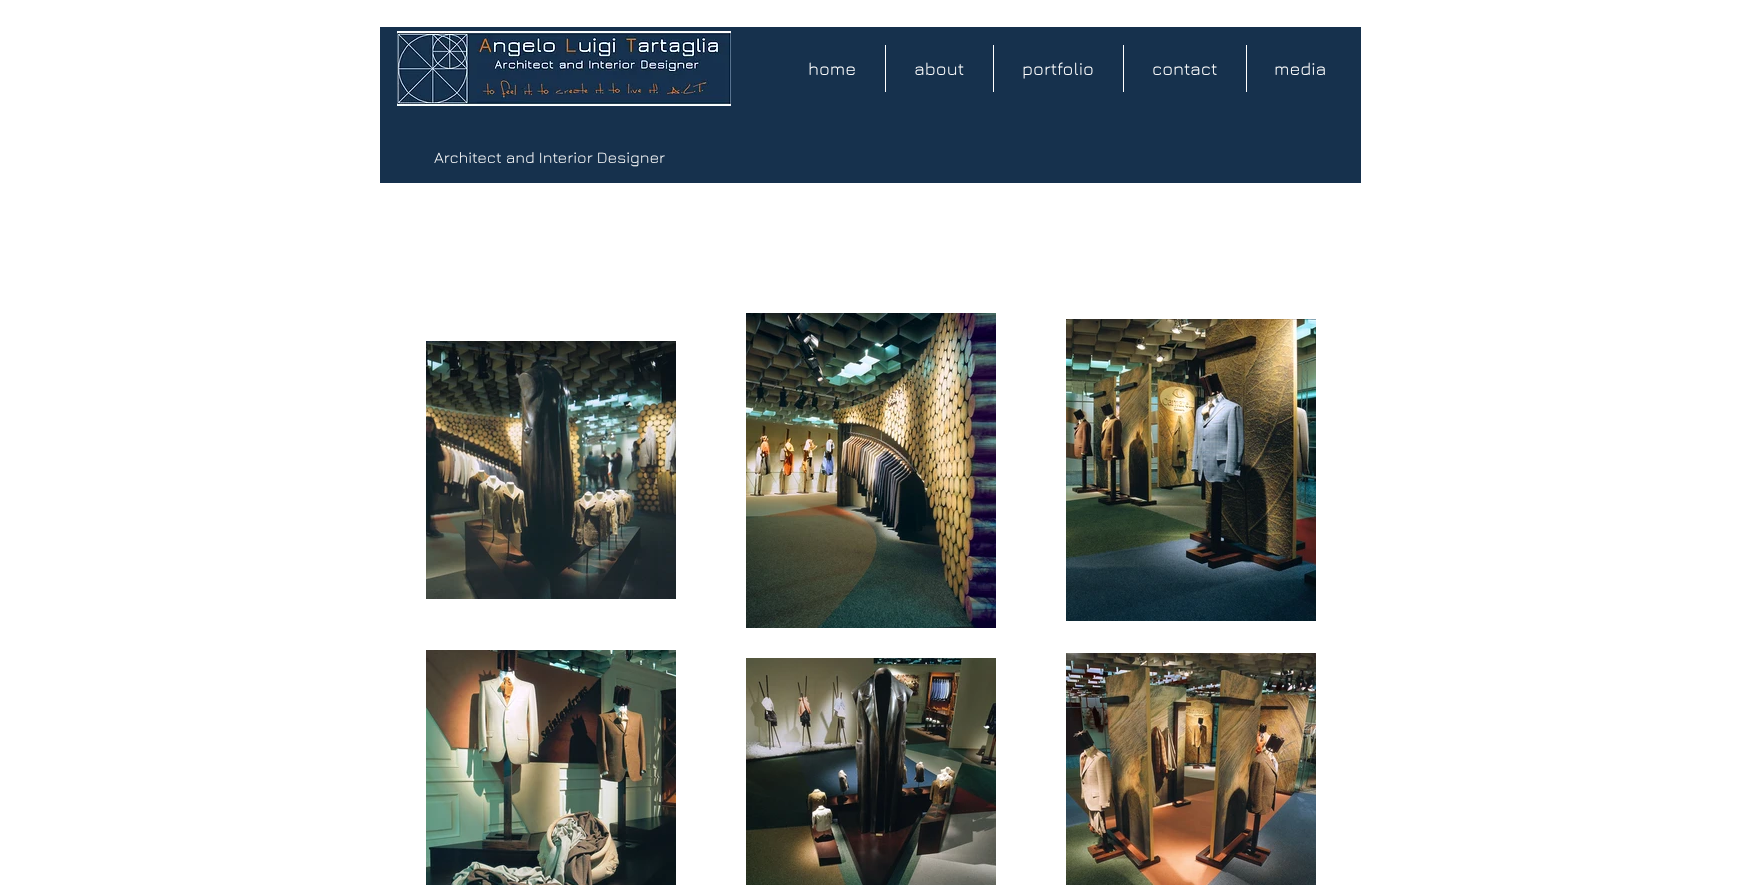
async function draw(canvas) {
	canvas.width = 1739;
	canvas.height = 885;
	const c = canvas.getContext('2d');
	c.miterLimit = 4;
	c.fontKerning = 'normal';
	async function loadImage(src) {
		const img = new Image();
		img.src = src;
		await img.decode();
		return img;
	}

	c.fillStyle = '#fff';
	c.fillRect(0, 0, 1739, 885);
	c.fillStyle = '#16314d';
	c.fillRect(380, 27, 981, 156);
	c.font = '18px Jura';
	c.fillStyle = '#fff';
	c.fillText('home', 808, 75);
	c.fillRect(885, 45, 1, 47);
	c.fillText('about', 914, 75);
	c.fillRect(993, 45, 1, 47);
	c.fillText('portfolio', 1022, 75);
	c.fillRect(1123, 45, 1, 47);
	c.fillText('contact', 1152, 75);
	c.fillRect(1246, 45, 1, 47);
	c.fillText('media', 1274, 75);
	c.drawImage(await loadImage('img1.png'), 397, 31, 334, 75);
	c.font = '16px Jura';
	c.fillText('Architect and Interior Designer', 434, 163);
	c.drawImage(await loadImage('img2.png'), 426, 341, 250, 258);
	c.drawImage(await loadImage('img3.png'), 746, 313, 250, 315);
	c.drawImage(await loadImage('img4.png'), 1066, 319, 250, 302);
	c.drawImage(await loadImage('img5.png'), 426, 650, 250, 235);
	c.drawImage(await loadImage('img6.png'), 746, 658, 250, 227);
	c.drawImage(await loadImage('img7.png'), 1066, 653, 250, 232);
}

draw(document.querySelector('canvas'));
